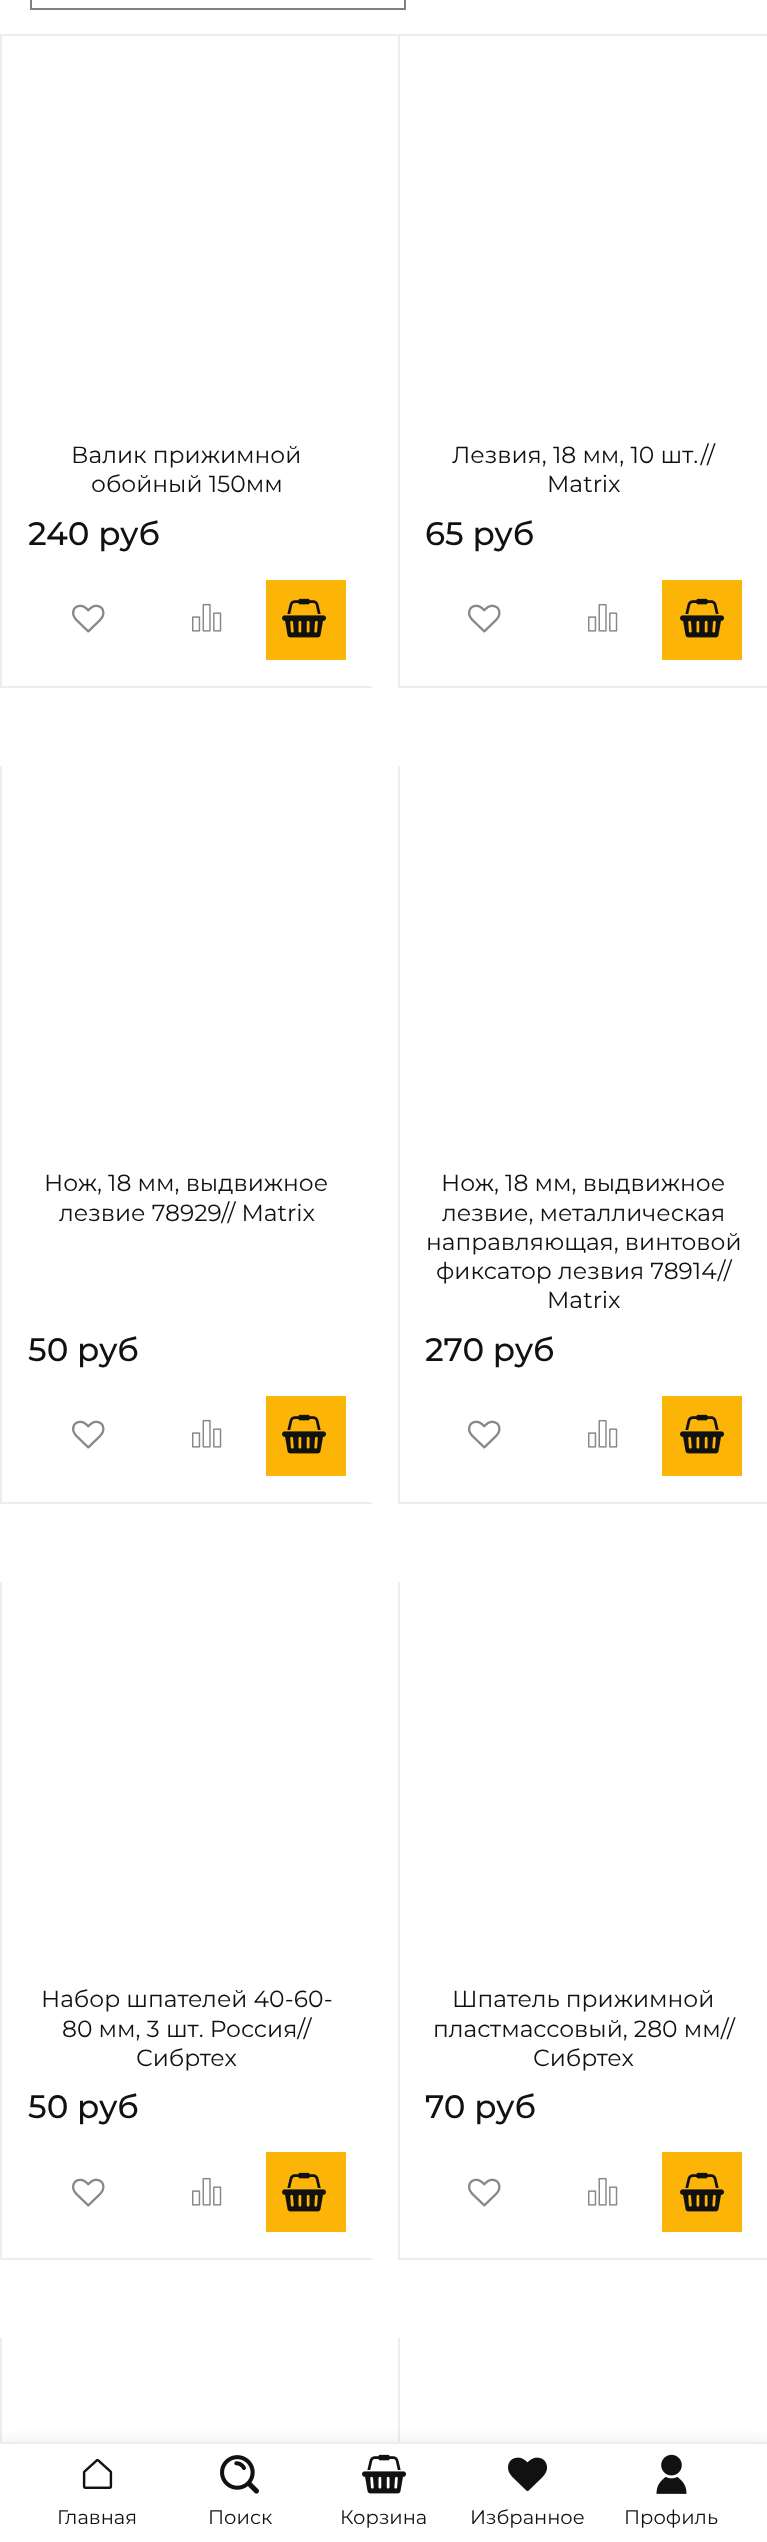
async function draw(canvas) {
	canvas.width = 767;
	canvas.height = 2542;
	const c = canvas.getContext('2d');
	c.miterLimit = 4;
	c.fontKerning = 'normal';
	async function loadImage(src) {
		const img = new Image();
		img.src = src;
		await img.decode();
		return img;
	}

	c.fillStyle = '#fff';
	c.fillRect(0, 0, 767, 2542);
	c.strokeStyle = '#808080';
	c.lineWidth = 2;
	c.strokeRect(31, -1, 374, 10);
	for (const [x, y, w, h, color] of [
		[0, 34, 767, 2, '#ededed'],
		[0, 686, 372, 2, '#ededed'],
		[0, 36, 2, 652, '#ededed'],
	]) {
		c.fillStyle = color;
		c.fillRect(x, y, w, h);
	}
	c.font = '23.4px Montserrat';
	c.fillStyle = '#111';
	c.fillText('Валик прижимной', 71, 463);
	c.fillText('обойный 150мм', 91, 492);
	c.font = '500 32.5px Montserrat';
	c.fillText('240 руб', 28, 545);
	c.drawImage(await loadImage('img1.png'), 72, 604, 33, 29);
	c.drawImage(await loadImage('img2.png'), 192, 603, 30, 29);
	c.fillStyle = '#fcb406';
	c.fillRect(266, 580, 80, 80);
	c.drawImage(await loadImage('img3.png'), 282, 598, 44, 40);
	c.fillStyle = '#ededed';
	c.fillRect(398, 686, 369, 2);
	c.fillRect(398, 36, 2, 652);
	c.font = '23.4px Montserrat';
	c.fillStyle = '#111';
	c.fillText('Лезвия, 18 мм, 10 шт.//', 452, 463);
	c.fillText('Matrix', 547, 492);
	c.font = '500 32.5px Montserrat';
	c.fillText('65 руб', 425, 545);
	c.drawImage(await loadImage('img1.png'), 468, 604, 33, 29);
	c.drawImage(await loadImage('img2.png'), 588, 603, 30, 29);
	c.fillStyle = '#fcb406';
	c.fillRect(662, 580, 80, 80);
	c.drawImage(await loadImage('img3.png'), 680, 598, 44, 40);
	c.fillStyle = '#ededed';
	c.fillRect(0, 1502, 372, 2);
	c.fillRect(0, 766, 2, 738);
	c.font = '23.4px Montserrat';
	c.fillStyle = '#111';
	c.fillText('Нож, 18 мм, выдвижное', 44, 1191);
	c.fillText('лезвие 78929// Matrix', 59, 1221);
	c.font = '500 32.5px Montserrat';
	c.fillText('50 руб', 28, 1361);
	c.drawImage(await loadImage('img1.png'), 72, 1420, 33, 29);
	c.drawImage(await loadImage('img2.png'), 192, 1419, 30, 29);
	c.fillStyle = '#fcb406';
	c.fillRect(266, 1396, 80, 80);
	c.drawImage(await loadImage('img3.png'), 282, 1414, 44, 40);
	c.fillStyle = '#ededed';
	c.fillRect(398, 1502, 369, 2);
	c.fillRect(398, 766, 2, 738);
	c.font = '23.4px Montserrat';
	c.fillStyle = '#111';
	for (const [text, x, y] of [
		['Нож, 18 мм, выдвижное', 441, 1191],
		['лезвие, металлическая', 442, 1221],
		['направляющая, винтовой', 426, 1250],
		['фиксатор лезвия 78914//', 436, 1279],
		['Matrix', 547, 1308],
	]) {
		c.fillText(text, x, y);
	}
	c.font = '500 32.5px Montserrat';
	c.fillText('270 руб', 425, 1361);
	c.drawImage(await loadImage('img1.png'), 468, 1420, 33, 29);
	c.drawImage(await loadImage('img2.png'), 588, 1419, 30, 29);
	c.fillStyle = '#fcb406';
	c.fillRect(662, 1396, 80, 80);
	c.drawImage(await loadImage('img3.png'), 680, 1414, 44, 40);
	c.fillStyle = '#ededed';
	c.fillRect(0, 2258, 372, 2);
	c.fillRect(0, 1582, 2, 678);
	c.font = '23.4px Montserrat';
	c.fillStyle = '#111';
	for (const [text, x, y] of [
		['Набор шпателей 40-60-', 41, 2007],
		['80 мм, 3 шт. Россия//', 62, 2037],
		['Сибртех', 136, 2066],
	]) {
		c.fillText(text, x, y);
	}
	c.font = '500 32.5px Montserrat';
	c.fillText('50 руб', 28, 2118);
	c.drawImage(await loadImage('img1.png'), 72, 2178, 33, 29);
	c.drawImage(await loadImage('img2.png'), 192, 2177, 30, 29);
	c.fillStyle = '#fcb406';
	c.fillRect(266, 2152, 80, 80);
	c.drawImage(await loadImage('img3.png'), 282, 2172, 44, 40);
	c.fillStyle = '#ededed';
	c.fillRect(398, 2258, 369, 2);
	c.fillRect(398, 1582, 2, 678);
	c.font = '23.4px Montserrat';
	c.fillStyle = '#111';
	for (const [text, x, y] of [
		['Шпатель прижимной', 452, 2007],
		['пластмассовый, 280 мм//', 433, 2037],
		['Сибртех', 533, 2066],
	]) {
		c.fillText(text, x, y);
	}
	c.font = '500 32.5px Montserrat';
	c.fillText('70 руб', 425, 2118);
	c.drawImage(await loadImage('img1.png'), 468, 2178, 33, 29);
	c.drawImage(await loadImage('img2.png'), 588, 2177, 30, 29);
	c.fillStyle = '#fcb406';
	c.fillRect(662, 2152, 80, 80);
	c.drawImage(await loadImage('img3.png'), 680, 2172, 44, 40);
	c.fillStyle = '#ededed';
	c.fillRect(0, 2338, 2, 104);
	c.fillRect(398, 2338, 2, 104);
	c.fillStyle = '#0000001f';
	c.filter = 'blur(10px)';
	c.beginPath();
	c.rect(0, 2446, 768, 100);
	c.fill();
	c.filter = 'none';
	c.fillStyle = '#fff';
	c.fillRect(0, 2444, 767, 98);
	c.fillStyle = '#ededed';
	c.fillRect(0, 2442, 767, 2);
	c.drawImage(await loadImage('img4.png'), 82, 2459, 31, 30);
	c.font = '19.5px Montserrat';
	c.fillStyle = '#111';
	c.fillText('Главная', 57, 2524);
	c.drawImage(await loadImage('img5.png'), 220, 2455, 39, 39);
	c.fillText('Поиск', 208, 2524);
	c.drawImage(await loadImage('img6.png'), 362, 2454, 44, 40);
	c.fillText('Корзина', 340, 2524);
	c.drawImage(await loadImage('img7.png'), 508, 2457, 39, 35);
	c.fillText('Избранное', 470, 2524);
	c.drawImage(await loadImage('img8.png'), 656, 2454, 31, 40);
	c.fillText('Профиль', 624, 2524);
}

draw(document.querySelector('canvas'));
